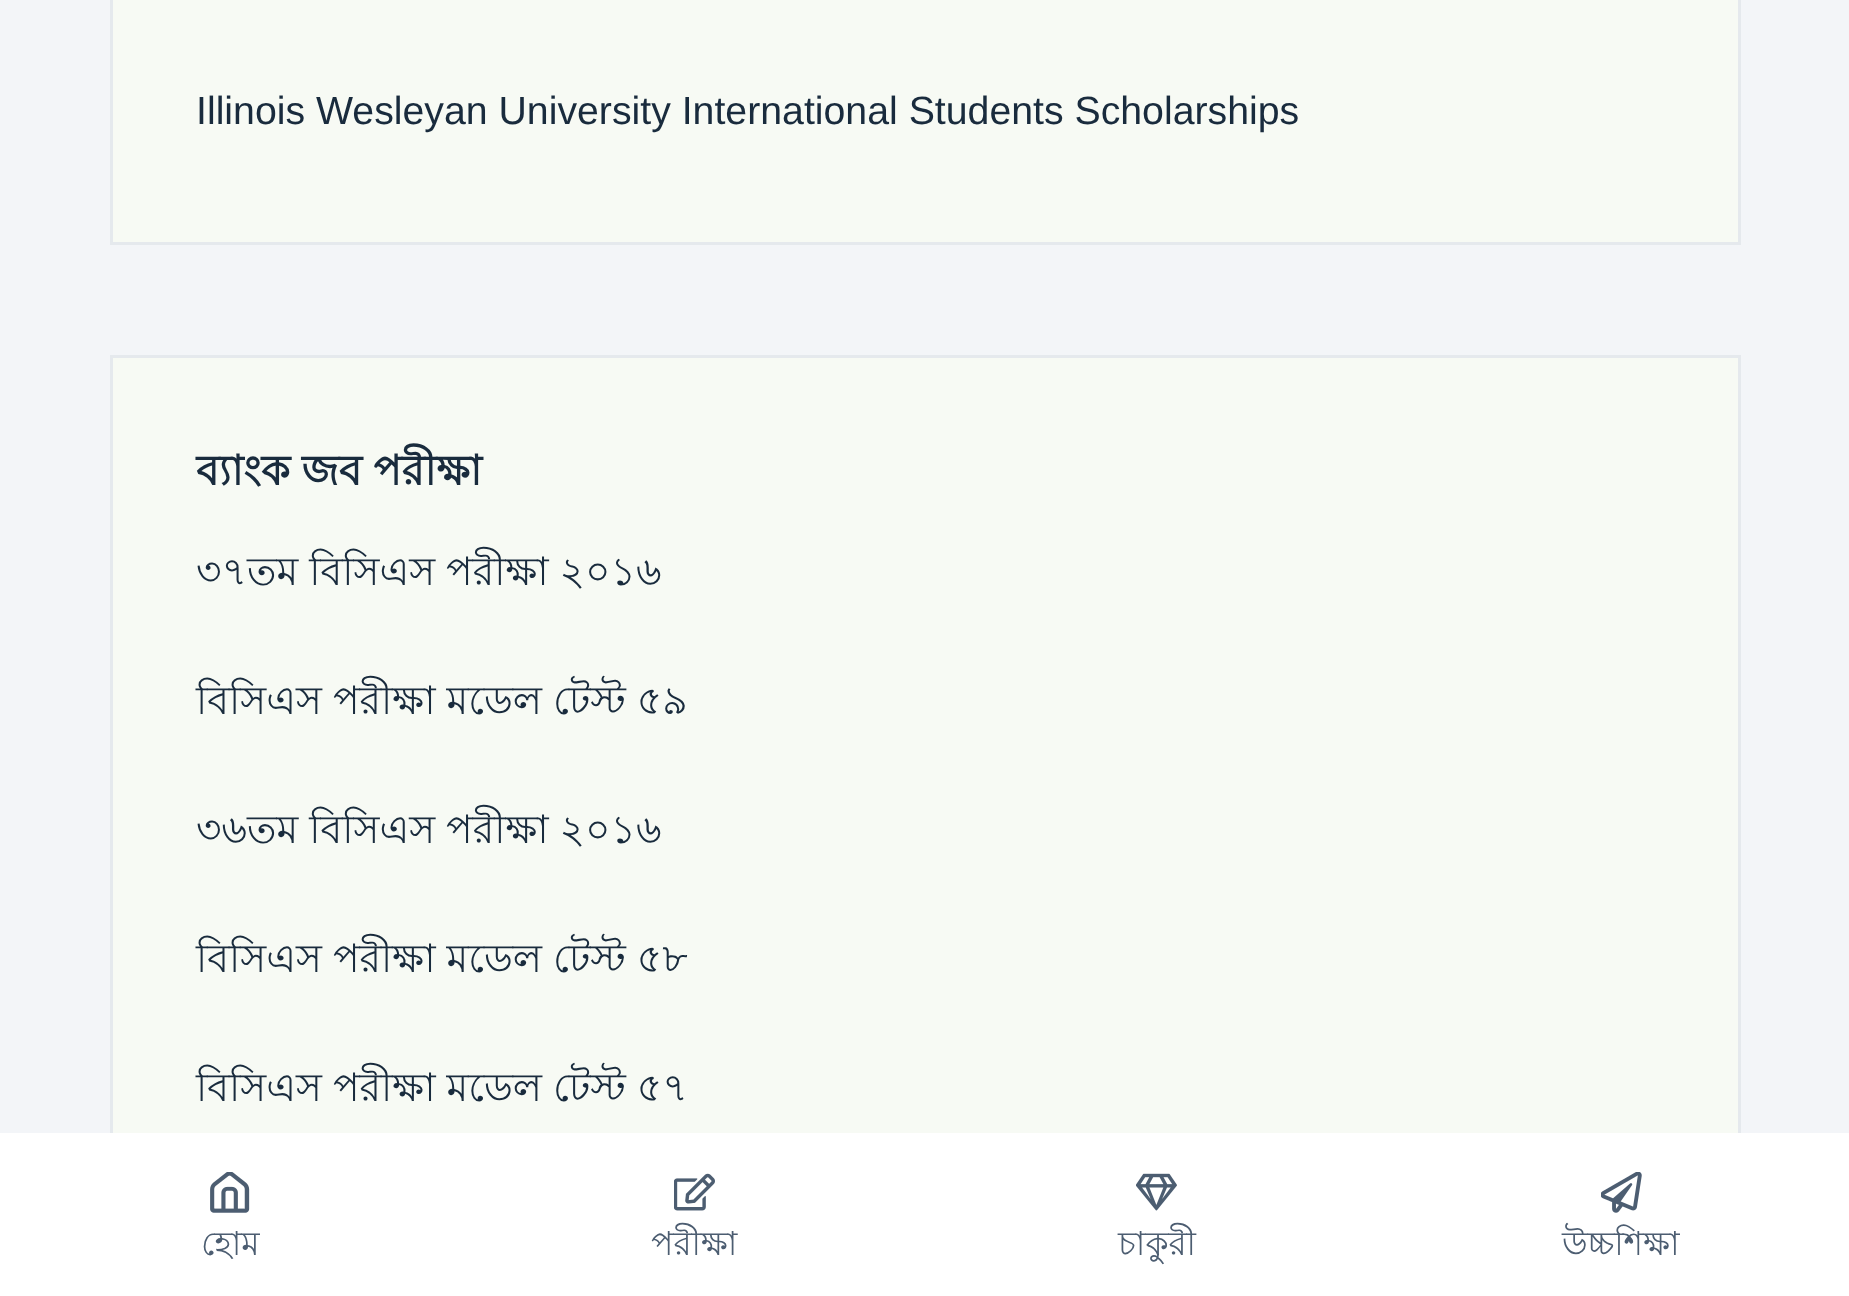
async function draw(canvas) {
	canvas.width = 1849;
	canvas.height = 1296;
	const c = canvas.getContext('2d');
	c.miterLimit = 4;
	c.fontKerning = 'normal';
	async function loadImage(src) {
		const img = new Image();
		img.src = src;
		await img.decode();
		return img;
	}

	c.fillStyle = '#f3f5f8';
	c.fillRect(0, 0, 1849, 1296);
	c.fillStyle = '#f7faf4';
	c.beginPath();
	c.rect(111.5, -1.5, 1628, 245);
	c.fill();
	c.strokeStyle = '#e5e9ed';
	c.lineWidth = 3;
	c.stroke();
	c.font = '39.25px Liberation Sans';
	c.fillStyle = '#192b3d';
	c.fillText('Illinois Wesleyan University International Students Scholarships', 196, 124);
	c.fillStyle = '#f7faf4';
	c.fillRect(113, 358, 1625, 775);
	c.strokeRect(111.5, 356.5, 1628, 866);
	c.font = 'bold 41.5px Lohit Bengali';
	c.fillStyle = '#192b3d';
	c.fillText('ব্যাংক জব পরীক্ষা', 196, 485);
	c.font = '39.25px Lohit Bengali';
	for (const [text, x, y] of [
		['৩৭তম বিসিএস পরীক্ষা ২০১৬', 196, 585],
		['বিসিএস পরীক্ষা মডেল টেস্ট ৫৯', 196, 714],
		['৩৬তম বিসিএস পরীক্ষা ২০১৬', 196, 843],
		['বিসিএস পরীক্ষা মডেল টেস্ট ৫৮', 196, 972],
		['বিসিএস পরীক্ষা মডেল টেস্ট ৫৭', 196, 1101],
	]) {
		c.fillText(text, x, y);
	}
	c.fillStyle = '#fff';
	c.fillRect(0, 1133, 1849, 163);
	c.drawImage(await loadImage('img1.png'), 210, 1172, 40, 41);
	c.font = '33px Lohit Bengali';
	c.fillStyle = '#4c5d71';
	c.fillText('হোম', 201, 1255);
	c.drawImage(await loadImage('img2.png'), 674, 1173, 41, 38);
	c.fillText('পরীক্ষা', 651, 1255);
	c.drawImage(await loadImage('img3.png'), 1136, 1173, 41, 38);
	c.fillText('চাকুরী', 1118, 1255);
	c.drawImage(await loadImage('img4.png'), 1601, 1172, 41, 41);
	c.fillText('উচ্চশিক্ষা', 1562, 1255);
}

draw(document.querySelector('canvas'));
